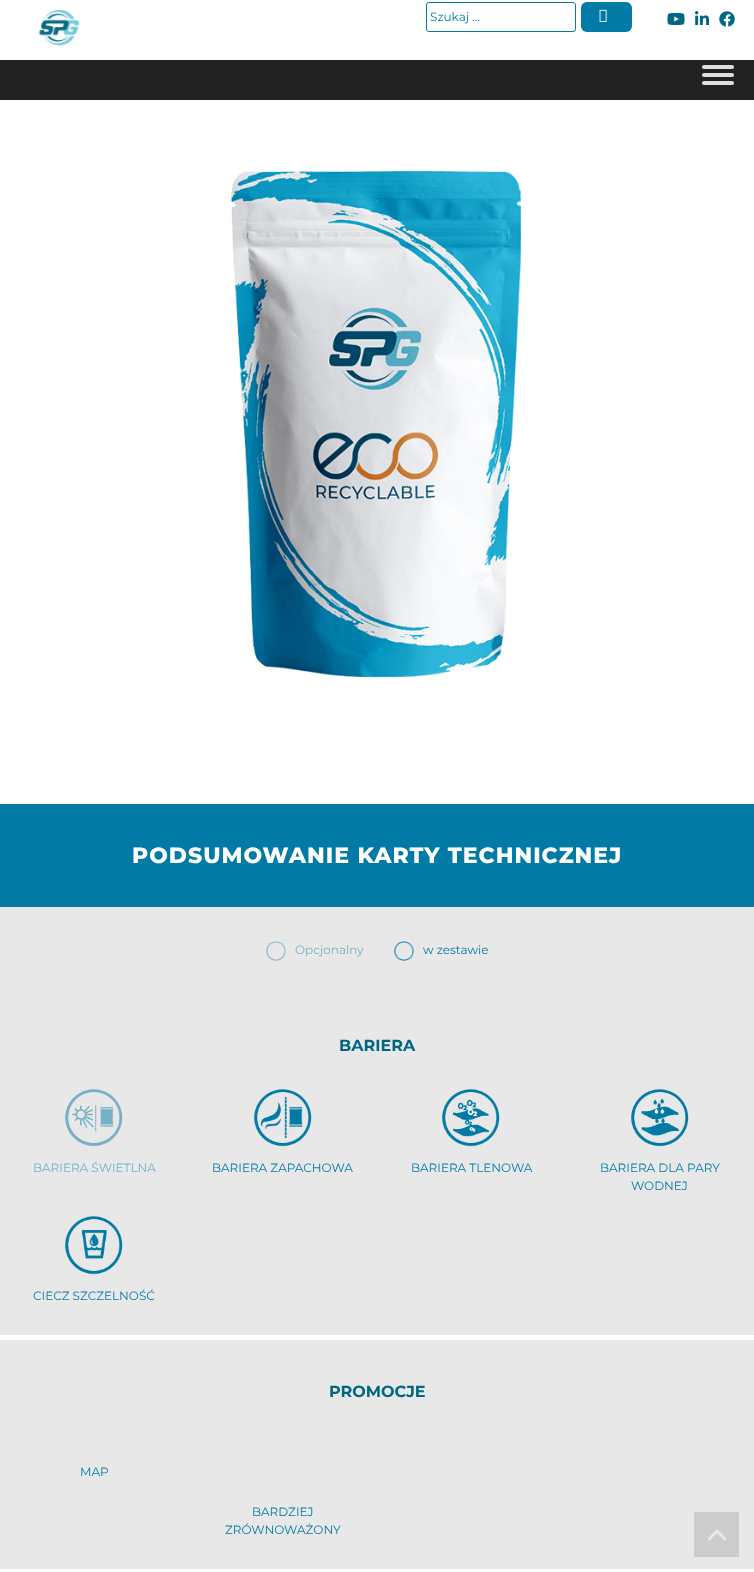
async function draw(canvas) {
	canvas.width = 754;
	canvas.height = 1572;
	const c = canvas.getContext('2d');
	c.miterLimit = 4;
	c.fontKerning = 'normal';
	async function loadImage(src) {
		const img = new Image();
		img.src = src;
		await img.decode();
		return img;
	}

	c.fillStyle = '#fff';
	c.fillRect(0, 0, 754, 1572);
	c.drawImage(await loadImage('img1.png'), 39, 9, 41, 37);
	c.beginPath();
	c.roundRect(426.5, 2.5, 149, 29, 2.5);
	c.strokeStyle = '#017ba6';
	c.stroke();
	c.font = '12px Montserrat';
	c.fillStyle = '#017ba6';
	c.fillText('Szukaj …', 430, 21);
	c.beginPath();
	c.roundRect(581, 2, 51, 30, 6);
	c.fill();
	c.drawImage(await loadImage('img2.png'), 599, 9, 8, 13);
	c.drawImage(await loadImage('img3.png'), 667, 13, 18, 12);
	c.drawImage(await loadImage('img4.png'), 695, 11, 14, 14);
	c.drawImage(await loadImage('img5.png'), 719, 11, 16, 16);
	c.fillStyle = '#222';
	c.fillRect(0, 60, 754, 40);
	c.fillStyle = '#ddd';
	c.beginPath();
	c.roundRect(702, 65, 32, 4, 2);
	c.fill();
	c.beginPath();
	c.roundRect(702, 73, 32, 4, 2);
	c.fill();
	c.beginPath();
	c.roundRect(702, 81, 32, 4, 2);
	c.fill();
	c.drawImage(await loadImage('img6.png'), 231, 171, 290, 506);
	c.fillStyle = '#017ba6';
	c.fillRect(0, 804, 754, 103);
	c.letterSpacing = '1px';
	c.font = '800 22px Montserrat';
	c.fillStyle = '#fff';
	c.fillText('PODSUMOWANIE KARTY TECHNICZNEJ', 132, 863);
	c.fillStyle = '#e8e8e8';
	c.fillRect(0, 907, 754, 428);
	c.drawImage(await loadImage('img7.png'), 266, 941, 20, 20);
	c.letterSpacing = '0px';
	c.font = '12px Montserrat';
	c.fillStyle = '#75b2c7';
	c.fillText('Opcjonalny', 295, 954);
	c.drawImage(await loadImage('img8.png'), 394, 941, 20, 20);
	c.fillStyle = '#017ba6';
	c.fillText('w zestawie', 423, 954);
	c.font = 'bold 16px Montserrat';
	c.fillStyle = '#006783';
	c.fillText('BARIERA', 339, 1051);
	c.drawImage(await loadImage('img9.png'), 65, 1089, 58, 58);
	c.font = '12px Montserrat';
	c.fillStyle = '#75b2c7';
	c.fillText('BARIERA ŚWIETLNA', 33, 1172);
	c.drawImage(await loadImage('img10.png'), 254, 1089, 58, 58);
	c.fillStyle = '#017ba6';
	c.fillText('BARIERA ZAPACHOWA', 212, 1172);
	c.drawImage(await loadImage('img11.png'), 442, 1089, 58, 58);
	c.fillText('BARIERA TLENOWA', 411, 1172);
	c.drawImage(await loadImage('img12.png'), 631, 1089, 58, 58);
	c.fillText('BARIERA DLA PARY', 600, 1172);
	c.fillText('WODNEJ', 631, 1190);
	c.drawImage(await loadImage('img13.png'), 65, 1216, 58, 59);
	c.fillText('CIECZ SZCZELNOŚĆ', 33, 1300);
	c.fillStyle = '#e8e8e8';
	c.fillRect(0, 1340, 754, 229);
	c.font = 'bold 16px Montserrat';
	c.fillStyle = '#006783';
	c.fillText('PROMOCJE', 329, 1397);
	c.font = '12px Montserrat';
	c.fillStyle = '#017ba6';
	for (const [text, x, y] of [
		['MAP', 80, 1476],
		['BARDZIEJ', 252, 1516],
		['ZRÓWNOWAŻONY', 225, 1534],
	]) {
		c.fillText(text, x, y);
	}
	c.fillStyle = '#ccc';
	c.fillRect(694, 1512, 45, 45);
	c.drawImage(await loadImage('img14.png'), 708, 1529, 19, 12);
}

draw(document.querySelector('canvas'));
